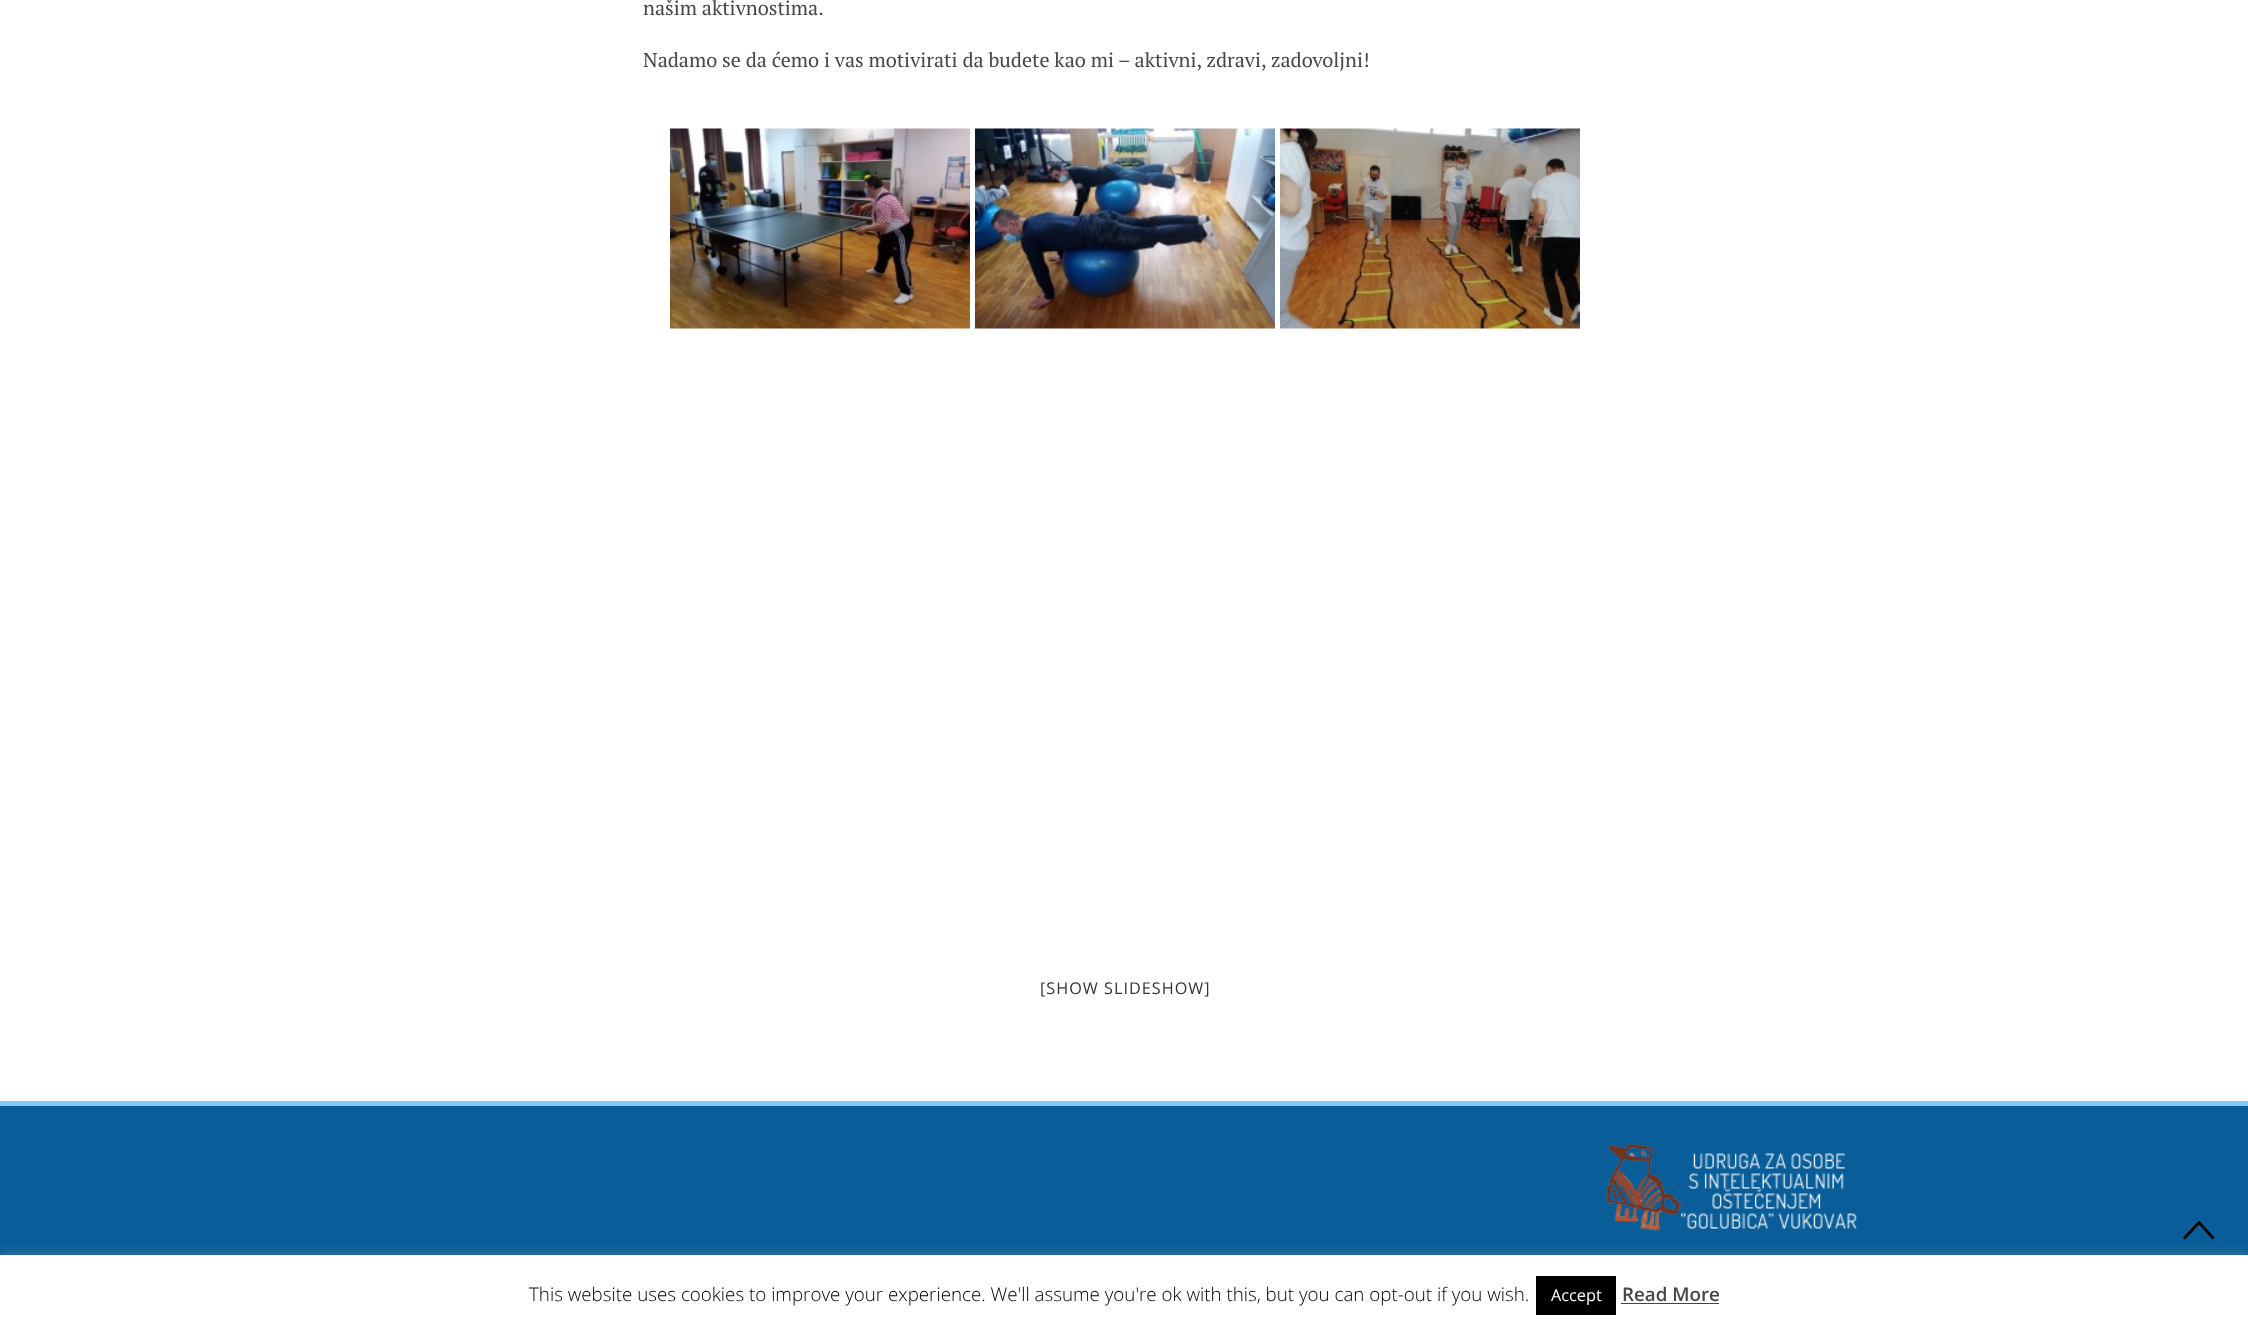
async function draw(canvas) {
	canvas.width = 2248;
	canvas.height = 1330;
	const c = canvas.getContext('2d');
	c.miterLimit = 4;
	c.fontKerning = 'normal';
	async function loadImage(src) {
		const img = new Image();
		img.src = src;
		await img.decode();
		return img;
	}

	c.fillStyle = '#fff';
	c.fillRect(0, 0, 2248, 1330);
	c.font = '20px PT Serif';
	c.fillStyle = '#464646';
	c.fillText('našim aktivnostima.', 643, 15);
	c.fillText('Nadamo se da ćemo i vas motivirati da budete kao mi – aktivni, zdravi, zadovoljni!', 643, 67);
	c.drawImage(await loadImage('img1.png'), 670, 128, 300, 201);
	c.drawImage(await loadImage('img2.png'), 975, 128, 300, 201);
	c.drawImage(await loadImage('img3.png'), 1280, 128, 300, 201);
	c.letterSpacing = '1px';
	c.font = '16.25px Open Sans';
	c.fillStyle = '#333';
	c.fillText('[SHOW SLIDESHOW]', 1040, 994);
	c.fillStyle = '#095d98';
	c.fillRect(0, 1106, 2248, 149);
	c.fillStyle = '#84cafb';
	c.fillRect(0, 1101, 2248, 5);
	c.drawImage(await loadImage('img4.png'), 1606, 1143, 251, 89);
	c.fillStyle = '#000';
	c.beginPath();
	c.moveTo(2212.5, 1239.5);
	c.lineTo(2214.5, 1237.5);
	c.lineTo(2199, 1220.5);
	c.lineTo(2183, 1237.5);
	c.lineTo(2185, 1239.5);
	c.lineTo(2199, 1224.5);
	c.closePath();
	c.fill();
	c.fillStyle = '#acabab4d';
	c.filter = 'blur(6px)';
	c.beginPath();
	c.rect(0, 1254, 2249, 75);
	c.fill();
	c.filter = 'none';
	c.fillStyle = '#fff';
	c.fillRect(0, 1255, 2248, 75);
	c.letterSpacing = '0px';
	c.font = '300 18.75px Open Sans';
	c.fillStyle = '#000';
	c.fillText('This website uses cookies to improve your experience. We\'ll assume you\'re ok with this, but you can opt-out if you wish.', 529, 1301);
	c.fillRect(1536, 1276, 80, 39);
	c.font = '16.25px Open Sans';
	c.fillStyle = '#fff';
	c.fillText('Accept', 1551, 1301);
	c.font = '600 18.75px Open Sans';
	c.fillStyle = '#464646';
	c.fillText('Read More', 1622, 1301);
	c.fillStyle = '#444';
	c.fillRect(1621, 1303, 98, 1);
}

draw(document.querySelector('canvas'));
